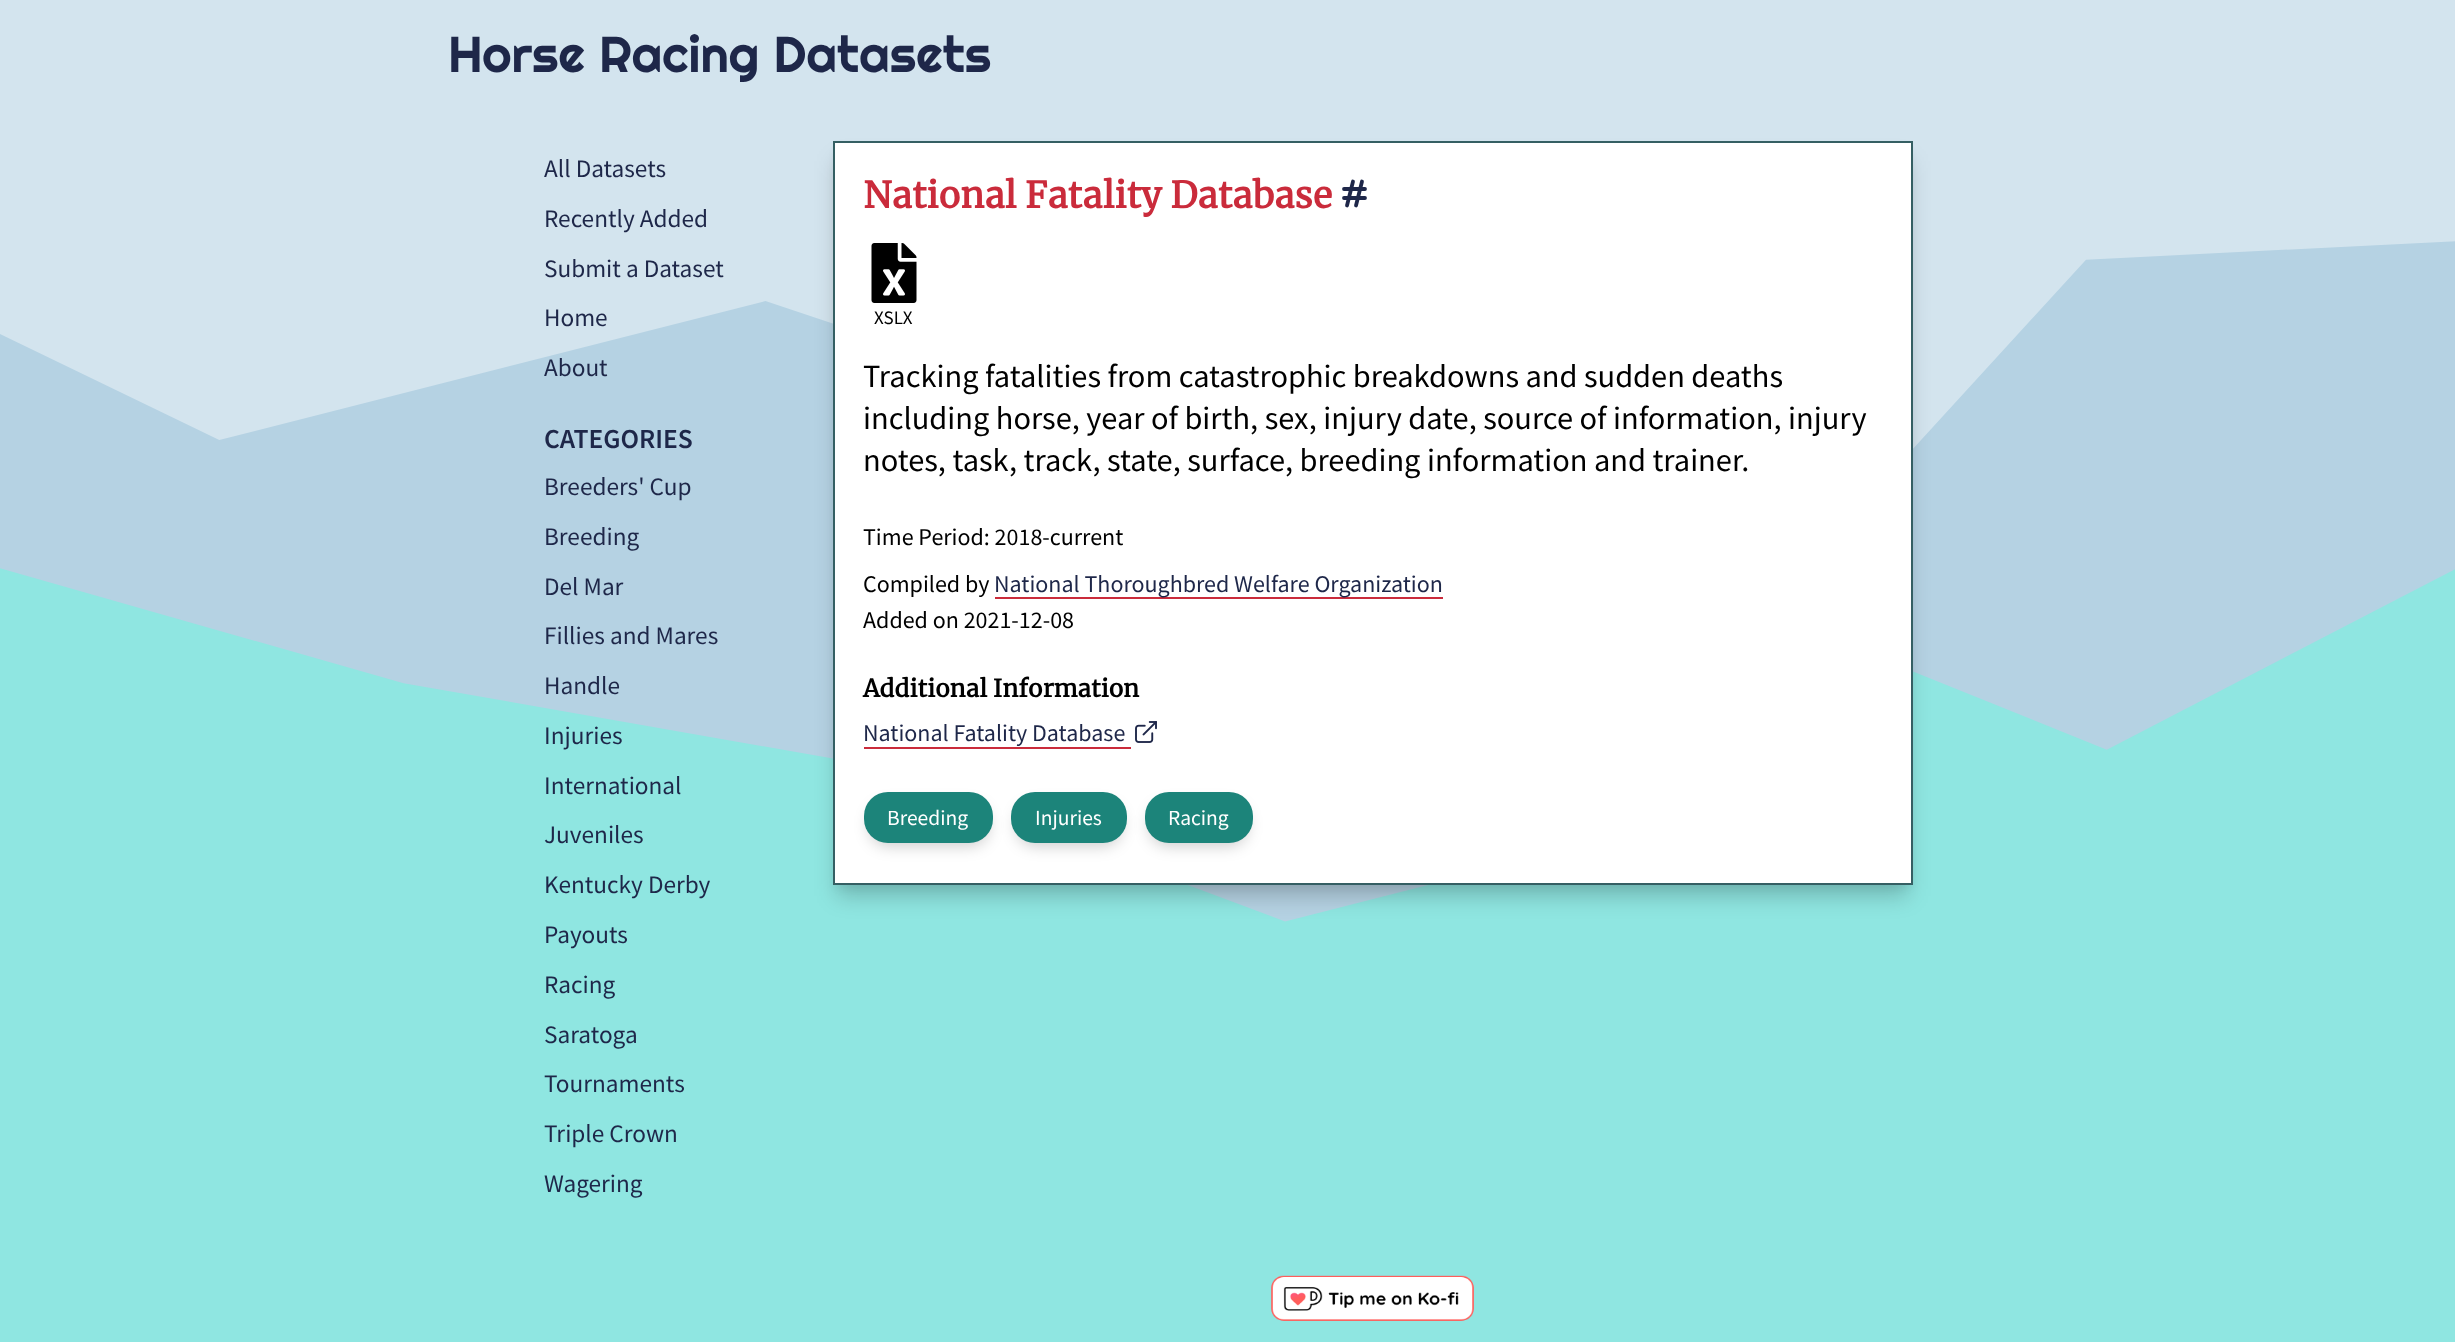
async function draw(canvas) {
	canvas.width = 2455;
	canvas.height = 1342;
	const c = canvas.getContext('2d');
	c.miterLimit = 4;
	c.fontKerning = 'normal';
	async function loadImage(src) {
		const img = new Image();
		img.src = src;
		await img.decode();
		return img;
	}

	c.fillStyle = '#d3e4ee';
	c.fillRect(0, 0, 2455, 1342);
	c.drawImage(await loadImage('img1.png'), 0, 241, 2455, 1101);
	c.font = '50.4px Righteous';
	c.fillStyle = '#1e2749';
	c.fillText('Horse Racing Datasets', 448, 72);
	c.font = '25.25px Source Sans Pro';
	for (const [text, x, y] of [
		['All Datasets', 544, 177],
		['Recently Added', 544, 227],
		['Submit a Dataset', 544, 277],
		['Home', 544, 326],
		['About', 544, 376],
	]) {
		c.fillText(text, x, y);
	}
	c.font = '600 27.5px Source Sans Pro';
	c.fillText('CATEGORIES', 544, 448);
	c.font = '25.25px Source Sans Pro';
	for (const [text, x, y] of [
		['Breeders\' Cup', 544, 495],
		['Breeding', 544, 545],
		['Del Mar', 544, 595],
		['Fillies and Mares', 544, 644],
		['Handle', 544, 694],
		['Injuries', 544, 744],
		['International', 544, 794],
		['Juveniles', 544, 843],
		['Kentucky Derby', 544, 893],
		['Payouts', 544, 943],
		['Racing', 544, 993],
		['Saratoga', 544, 1043],
		['Tournaments', 544, 1092],
		['Triple Crown', 544, 1142],
		['Wagering', 544, 1192],
	]) {
		c.fillText(text, x, y);
	}
	c.fillStyle = '#0000000d';
	c.filter = 'blur(4.5px)';
	c.beginPath();
	c.rect(836, 150, 1074, 738);
	c.fill();
	c.filter = 'none';
	c.fillStyle = '#00000033';
	c.filter = 'blur(11px)';
	c.beginPath();
	c.rect(837, 161, 1071, 735);
	c.fill();
	c.filter = 'none';
	c.fillStyle = '#fff';
	c.beginPath();
	c.rect(834, 142, 1078, 742);
	c.fill();
	c.strokeStyle = '#355f63';
	c.lineWidth = 2;
	c.stroke();
	c.font = 'bold 36px Merriweather';
	c.fillStyle = '#ca2b3b';
	c.fillText('National Fatality Database', 863, 208);
	c.beginPath();
	c.moveTo(1344, 189);
	c.lineTo(1365, 189);
	c.moveTo(1344, 198);
	c.lineTo(1365, 198);
	c.moveTo(1353, 181.5);
	c.lineTo(1347, 205.5);
	c.moveTo(1362, 181.5);
	c.lineTo(1356, 205.5);
	c.strokeStyle = '#1e2749';
	c.lineWidth = 3.8;
	c.lineCap = 'round';
	c.lineJoin = 'round';
	c.stroke();
	c.drawImage(await loadImage('img2.png'), 871, 243, 46, 60);
	c.font = '19px Source Sans Pro';
	c.fillStyle = '#000';
	c.fillText('XSLX', 874, 324);
	c.font = '32.4px Source Sans Pro';
	for (const [text, x, y] of [
		['Tracking fatalities from catastrophic breakdowns and sudden deaths', 863, 387],
		['including horse, year of birth, sex, injury date, source of information, injury', 863, 429],
		['notes, task, track, state, surface, breeding information and trainer.', 863, 471],
	]) {
		c.fillText(text, x, y);
	}
	c.font = '24px Source Sans Pro';
	c.fillText('Time Period: 2018-current', 863, 545);
	c.fillText('Compiled by', 863, 592);
	c.fillStyle = '#ca2b3b';
	c.fillRect(995, 597, 448, 2);
	c.fillStyle = '#1e2749';
	c.fillText('National Thoroughbred Welfare Organization', 994, 592);
	c.fillStyle = '#000';
	c.fillText('Added on 2021-12-08', 863, 628);
	c.font = 'bold 24px Merriweather';
	c.fillText('Additional Information', 863, 697);
	c.font = '24px Source Sans Pro';
	c.fillStyle = '#1e2749';
	c.fillText('National Fatality Database', 863, 741);
	c.fillStyle = '#ca2b3b';
	c.fillRect(864, 747, 267, 2);
	c.drawImage(await loadImage('img3.png'), 1135, 721, 22, 22);
	c.fillStyle = '#00000033';
	c.filter = 'blur(7.5px)';
	c.beginPath();
	c.roundRect(869, 804, 120, 42, 20);
	c.fill();
	c.filter = 'none';
	c.fillStyle = '#1c847a';
	c.beginPath();
	c.roundRect(864, 792, 129, 51, 24);
	c.fill();
	c.font = '21.5px Source Sans Pro';
	c.fillStyle = '#fff';
	c.fillText('Breeding', 887, 825);
	c.fillStyle = '#00000033';
	c.filter = 'blur(7.5px)';
	c.beginPath();
	c.roundRect(1016, 804, 106, 42, 20);
	c.fill();
	c.filter = 'none';
	c.fillStyle = '#1c847a';
	c.beginPath();
	c.roundRect(1011, 792, 116, 51, 24);
	c.fill();
	c.fillStyle = '#fff';
	c.fillText('Injuries', 1035, 825);
	c.fillStyle = '#00000033';
	c.filter = 'blur(7.5px)';
	c.beginPath();
	c.roundRect(1149, 804, 99, 42, 20);
	c.fill();
	c.filter = 'none';
	c.fillStyle = '#1c847a';
	c.beginPath();
	c.roundRect(1145, 792, 108, 51, 24);
	c.fill();
	c.fillStyle = '#fff';
	c.fillText('Racing', 1168, 825);
	c.drawImage(await loadImage('img4.png'), 1271, 1275, 203, 46);
}

draw(document.querySelector('canvas'));
